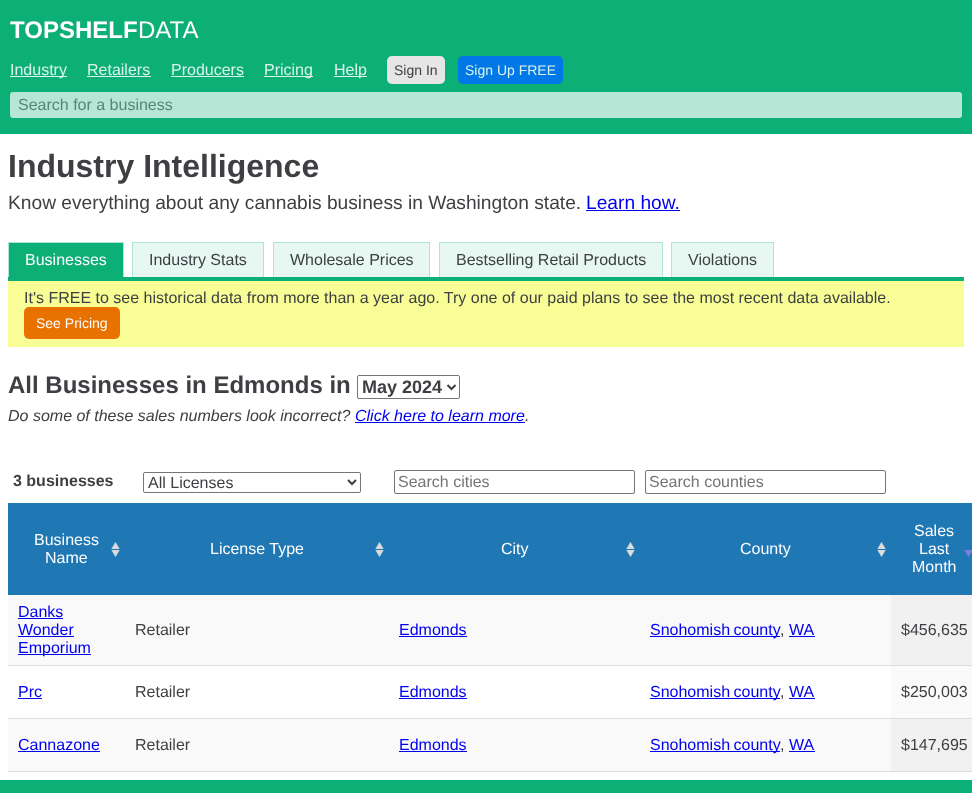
async function draw(canvas) {
	canvas.width = 972;
	canvas.height = 793;
	const c = canvas.getContext('2d');
	c.miterLimit = 4;
	c.fontKerning = 'normal';
	async function loadImage(src) {
		const img = new Image();
		img.src = src;
		await img.decode();
		return img;
	}

	c.fillStyle = '#fff';
	c.fillRect(0, 0, 972, 793);
	c.fillStyle = '#0caf76';
	c.fillRect(0, 0, 972, 134);
	c.font = 'bold 24px Liberation Sans';
	c.fillStyle = '#fffdfe';
	c.fillText('TOPSHELF', 10, 38);
	c.font = '24px Liberation Sans';
	c.fillText('DATA', 138, 38);
	c.fillStyle = '#dbf3ea';
	c.fillRect(10, 76, 57, 1);
	c.font = '16px Liberation Sans';
	c.fillText('Industry', 10, 75);
	c.fillText('Retailers', 87, 75);
	c.fillRect(87, 76, 64, 1);
	c.fillText('Producers', 171, 75);
	c.fillRect(171, 76, 73, 1);
	c.fillRect(264, 76, 49, 1);
	c.fillText('Pricing', 264, 75);
	c.fillRect(334, 76, 33, 1);
	c.fillText('Help', 334, 75);
	c.fillStyle = '#e6e6e6';
	c.beginPath();
	c.roundRect(387, 56, 58, 28, 5);
	c.fill();
	c.font = '14px Liberation Sans';
	c.fillStyle = '#3d3f42';
	c.fillText('Sign In', 394, 75);
	c.fillStyle = '#0078e7';
	c.beginPath();
	c.roundRect(458, 56, 105, 28, 5);
	c.fill();
	c.fillStyle = '#dbf3ea';
	c.fillText('Sign Up FREE', 465, 75);
	c.fillStyle = '#b6e7d6';
	c.beginPath();
	c.roundRect(10, 92, 952, 26, 3);
	c.fill();
	c.font = '16px Liberation Sans';
	c.fillStyle = '#568675';
	c.fillText('Search for a business', 18, 110);
	c.font = 'bold 32px Liberation Sans';
	c.fillStyle = '#3d3f42';
	c.fillText('Industry Intelligence', 8, 177);
	c.font = '19.2px Liberation Sans';
	c.fillText('Know everything about any cannabis business in Washington state.', 8, 209);
	c.fillStyle = '#00e';
	c.fillText('Learn how.', 586, 209);
	for (const [x, y, w, h, color] of [
		[586, 210, 94, 1, '#00e'],
		[8, 277, 956, 4, '#0caf76'],
		[8, 242, 116, 35, '#e7f7f1'],
	]) {
		c.fillStyle = color;
		c.fillRect(x, y, w, h);
	}
	c.fillStyle = '#b0e5d2';
	c.beginPath();
	c.moveTo(8, 242);
	c.lineTo(124, 242);
	c.lineTo(123, 243);
	c.lineTo(9, 243);
	c.closePath();
	c.fill();
	c.fillStyle = '#0caf7640';
	c.beginPath();
	c.moveTo(124, 242);
	c.lineTo(124, 277);
	c.lineTo(123, 277);
	c.lineTo(123, 243);
	c.closePath();
	c.fill();
	c.beginPath();
	c.moveTo(8, 277);
	c.lineTo(8, 242);
	c.lineTo(9, 243);
	c.lineTo(9, 277);
	c.closePath();
	c.fill();
	c.fillStyle = '#0caf76';
	c.fillRect(9, 243, 114, 34);
	c.font = '16px Liberation Sans';
	c.fillStyle = '#fffdfe';
	c.fillText('Businesses', 25, 265);
	c.fillStyle = '#e7f7f1';
	c.fillRect(132, 242, 132, 35);
	c.fillStyle = '#b0e5d2';
	c.beginPath();
	c.moveTo(132, 242);
	c.lineTo(264, 242);
	c.lineTo(263, 243);
	c.lineTo(133, 243);
	c.closePath();
	c.fill();
	c.fillStyle = '#0caf7640';
	c.beginPath();
	c.moveTo(264, 242);
	c.lineTo(264, 277);
	c.lineTo(263, 277);
	c.lineTo(263, 243);
	c.closePath();
	c.fill();
	c.beginPath();
	c.moveTo(132, 277);
	c.lineTo(132, 242);
	c.lineTo(133, 243);
	c.lineTo(133, 277);
	c.closePath();
	c.fill();
	c.fillStyle = '#3d3f42';
	c.fillText('Industry Stats', 149, 265);
	c.fillStyle = '#e7f7f1';
	c.fillRect(273, 242, 157, 35);
	c.fillStyle = '#b0e5d2';
	c.beginPath();
	c.moveTo(273, 242);
	c.lineTo(430, 242);
	c.lineTo(429, 243);
	c.lineTo(274, 243);
	c.closePath();
	c.fill();
	c.fillStyle = '#0caf7640';
	c.beginPath();
	c.moveTo(430, 242);
	c.lineTo(430, 277);
	c.lineTo(429, 277);
	c.lineTo(429, 243);
	c.closePath();
	c.fill();
	c.beginPath();
	c.moveTo(273, 277);
	c.lineTo(273, 242);
	c.lineTo(274, 243);
	c.lineTo(274, 277);
	c.closePath();
	c.fill();
	c.fillStyle = '#3d3f42';
	c.fillText('Wholesale Prices', 290, 265);
	c.fillStyle = '#e7f7f1';
	c.fillRect(439, 242, 224, 35);
	c.fillStyle = '#b0e5d2';
	c.beginPath();
	c.moveTo(439, 242);
	c.lineTo(663, 242);
	c.lineTo(662, 243);
	c.lineTo(440, 243);
	c.closePath();
	c.fill();
	c.fillStyle = '#0caf7640';
	c.beginPath();
	c.moveTo(663, 242);
	c.lineTo(663, 277);
	c.lineTo(662, 277);
	c.lineTo(662, 243);
	c.closePath();
	c.fill();
	c.beginPath();
	c.moveTo(439, 277);
	c.lineTo(439, 242);
	c.lineTo(440, 243);
	c.lineTo(440, 277);
	c.closePath();
	c.fill();
	c.fillStyle = '#3d3f42';
	c.fillText('Bestselling Retail Products', 456, 265);
	c.fillStyle = '#e7f7f1';
	c.fillRect(671, 242, 103, 35);
	c.fillStyle = '#b0e5d2';
	c.beginPath();
	c.moveTo(671, 242);
	c.lineTo(774, 242);
	c.lineTo(773, 243);
	c.lineTo(672, 243);
	c.closePath();
	c.fill();
	c.fillStyle = '#0caf7640';
	c.beginPath();
	c.moveTo(774, 242);
	c.lineTo(774, 277);
	c.lineTo(773, 277);
	c.lineTo(773, 243);
	c.closePath();
	c.fill();
	c.beginPath();
	c.moveTo(671, 277);
	c.lineTo(671, 242);
	c.lineTo(672, 243);
	c.lineTo(672, 277);
	c.closePath();
	c.fill();
	c.fillStyle = '#3d3f42';
	c.fillText('Violations', 688, 265);
	c.fillStyle = '#f8fe95';
	c.fillRect(8, 281, 956, 66);
	c.fillStyle = '#3d3f42';
	c.fillText('It\'s FREE to see historical data from more than a year ago. Try one of our paid plans to see the most recent data available.', 24, 303);
	c.fillStyle = '#e77200';
	c.beginPath();
	c.roundRect(24, 307, 96, 32, 5);
	c.fill();
	c.font = '14px Liberation Sans';
	c.fillStyle = '#fffdfe';
	c.fillText('See Pricing', 36, 328);
	c.font = 'bold 24px Liberation Sans';
	c.fillStyle = '#3d3f42';
	c.fillText('All Businesses in Edmonds in', 8, 393);
	c.beginPath();
	c.roundRect(357.5, 375.5, 102, 23, 1.5);
	c.strokeStyle = '#767676';
	c.stroke();
	c.beginPath();
	c.moveTo(447.5, 385);
	c.lineTo(451.5, 389);
	c.lineTo(455.5, 385);
	c.strokeStyle = '#3d3f42';
	c.lineWidth = 2;
	c.stroke();
	c.font = 'bold 18px Liberation Sans';
	c.fillText('May 2024', 362, 393);
	c.font = 'italic 16px Liberation Sans';
	c.fillText('Do some of these sales numbers look incorrect?', 8, 421);
	c.fillStyle = '#00e';
	c.fillText('Click here to learn more', 355, 421);
	c.fillStyle = '#3d3f42';
	c.fillText('.', 525, 421);
	c.fillStyle = '#00e';
	c.fillRect(355, 422, 170, 1);
	c.fillStyle = '#ddd';
	c.fillRect(8, 771, 964, 1);
	c.font = 'bold 16px Liberation Sans';
	c.fillStyle = '#3d3f42';
	c.fillText('3 businesses', 13, 486);
	c.beginPath();
	c.roundRect(143.5, 472.5, 217, 20, 1.5);
	c.strokeStyle = '#767676';
	c.lineWidth = 1;
	c.stroke();
	c.beginPath();
	c.moveTo(348, 480);
	c.lineTo(352, 484);
	c.lineTo(356, 480);
	c.strokeStyle = '#3d3f42';
	c.lineWidth = 2;
	c.stroke();
	c.font = '16px Liberation Sans';
	c.fillText('All Licenses', 148, 488);
	c.beginPath();
	c.roundRect(394.5, 470.5, 240, 23, 1.5);
	c.strokeStyle = '#767676';
	c.lineWidth = 1;
	c.stroke();
	c.fillStyle = '#757575';
	c.fillText('Search cities', 398, 487);
	c.beginPath();
	c.roundRect(645.5, 470.5, 240, 23, 1.5);
	c.stroke();
	c.fillText('Search counties', 649, 487);
	c.fillStyle = '#1f78b4';
	c.fillRect(8, 503, 964, 92);
	c.drawImage(await loadImage('img1.png'), 111, 542, 9, 15);
	c.fillStyle = '#fffdfe';
	c.fillText('Business', 34, 545);
	c.fillText('Name', 45, 563);
	c.drawImage(await loadImage('img1.png'), 375, 542, 9, 15);
	c.fillText('License Type', 210, 554);
	c.drawImage(await loadImage('img1.png'), 626, 542, 9, 15);
	c.fillText('City', 501, 554);
	c.drawImage(await loadImage('img1.png'), 877, 542, 9, 15);
	c.fillText('County', 740, 554);
	c.drawImage(await loadImage('img2.png'), 964, 550, 8, 7);
	for (const [text, x, y] of [
		['Sales', 914, 536],
		['Last', 919, 554],
		['Month', 912, 572],
	]) {
		c.fillText(text, x, y);
	}
	c.fillStyle = '#f9f9f9';
	c.fillRect(8, 595, 883, 70);
	c.fillStyle = '#00e';
	c.fillText('Danks', 18, 617);
	c.fillRect(18, 618, 45, 1);
	c.fillText('Wonder', 18, 635);
	c.fillRect(18, 636, 56, 1);
	c.fillRect(18, 654, 73, 1);
	c.fillText('Emporium', 18, 653);
	c.fillStyle = '#3d3f42';
	c.fillText('Retailer', 135, 635);
	c.fillStyle = '#00e';
	c.fillText('Edmonds', 399, 635);
	c.fillRect(399, 636, 68, 1);
	c.fillRect(650, 636, 130, 1);
	c.wordSpacing = '-1px';
	c.fillText('Snohomish county', 650, 635);
	c.wordSpacing = '0px';
	c.fillText('WA', 789, 635);
	c.fillRect(789, 636, 26, 1);
	c.fillStyle = '#3d3f42';
	c.fillText(',', 780, 635);
	c.fillStyle = '#f1f1f1';
	c.fillRect(891, 595, 81, 70);
	c.fillStyle = '#3d3f42';
	c.fillText('$456,635', 901, 635);
	c.fillStyle = '#ddd';
	c.fillRect(8, 665, 964, 1);
	c.fillStyle = '#00e';
	c.fillText('Prc', 18, 697);
	c.fillRect(18, 698, 24, 1);
	c.fillStyle = '#3d3f42';
	c.fillText('Retailer', 135, 697);
	c.fillStyle = '#00e';
	c.fillText('Edmonds', 399, 697);
	c.fillRect(399, 698, 68, 1);
	c.fillRect(650, 698, 130, 1);
	c.wordSpacing = '-1px';
	c.fillText('Snohomish county', 650, 697);
	c.wordSpacing = '0px';
	c.fillText('WA', 789, 697);
	c.fillRect(789, 698, 26, 1);
	c.fillStyle = '#3d3f42';
	c.fillText(',', 780, 697);
	c.fillStyle = '#fafafa';
	c.fillRect(891, 666, 81, 52);
	c.fillStyle = '#3d3f42';
	c.fillText('$250,003', 901, 697);
	c.fillStyle = '#f9f9f9';
	c.fillRect(8, 719, 883, 52);
	c.fillStyle = '#ddd';
	c.fillRect(8, 718, 964, 1);
	c.fillStyle = '#00e';
	c.fillText('Cannazone', 18, 750);
	c.fillRect(18, 751, 82, 1);
	c.fillStyle = '#3d3f42';
	c.fillText('Retailer', 135, 750);
	c.fillStyle = '#00e';
	c.fillText('Edmonds', 399, 750);
	c.fillRect(399, 751, 68, 1);
	c.fillRect(650, 751, 130, 1);
	c.wordSpacing = '-1px';
	c.fillText('Snohomish county', 650, 750);
	c.wordSpacing = '0px';
	c.fillText('WA', 789, 750);
	c.fillRect(789, 751, 26, 1);
	c.fillStyle = '#3d3f42';
	c.fillText(',', 780, 750);
	c.fillStyle = '#f1f1f1';
	c.fillRect(891, 719, 81, 52);
	c.fillStyle = '#3d3f42';
	c.fillText('$147,695', 901, 750);
	c.fillStyle = '#0caf76';
	c.fillRect(0, 780, 972, 13);
}

draw(document.querySelector('canvas'));
